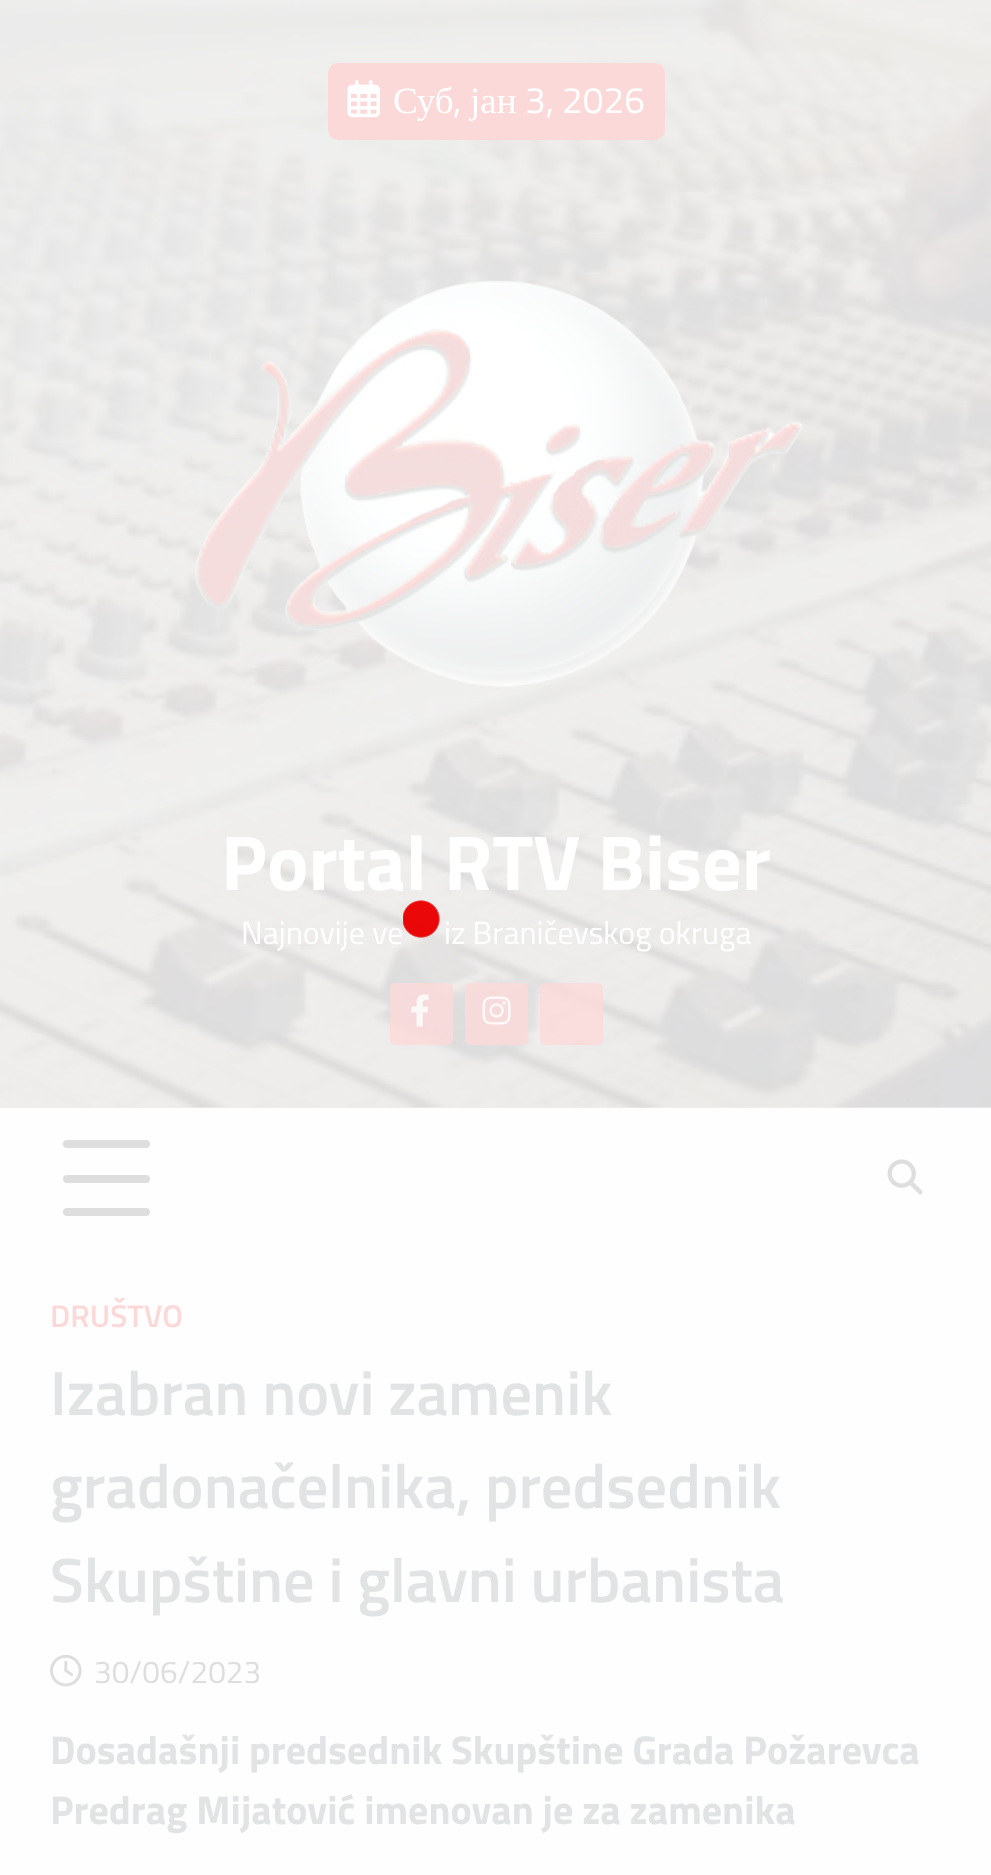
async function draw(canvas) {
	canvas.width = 991;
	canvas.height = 1875;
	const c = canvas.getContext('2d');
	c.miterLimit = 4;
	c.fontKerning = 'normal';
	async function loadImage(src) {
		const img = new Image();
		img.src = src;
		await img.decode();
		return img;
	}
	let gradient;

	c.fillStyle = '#fefefe';
	c.fillRect(0, 0, 991, 1875);
	c.fillStyle = '#f0f0f0';
	c.fillRect(0, 1107, 991, 1);
	c.drawImage(await loadImage('img1.png'), 0, 0, 991, 1108);
	c.fillStyle = '#fcd9d9';
	c.beginPath();
	c.roundRect(328, 63, 337, 77, 10);
	c.fill();
	c.drawImage(await loadImage('img2.png'), 347, 80, 33, 38);
	c.font = '37px Liberation Serif';
	c.fillStyle = '#fff';
	c.fillText('Суб', 393, 113);
	c.font = '37px Titillium Web';
	c.fillText(',', 453, 113);
	c.font = '37px Liberation Serif';
	c.fillText('јан', 470, 113);
	c.font = '37px Titillium Web';
	c.fillText('3, 2026', 525, 113);
	c.drawImage(await loadImage('img3.png'), 194, 280, 610, 408);
	c.font = 'bold 78px Titillium Web';
	c.fillText('Portal RTV Biser', 221, 890);
	c.font = '32px Titillium Web';
	c.fillText('Najnovije ve', 241, 944);
	c.fillText('iz Braničevskog okruga', 444, 944);
	c.fillStyle = '#fcd9d9cc';
	c.beginPath();
	c.roundRect(390, 983, 63, 62, 5);
	c.fill();
	c.drawImage(await loadImage('img4.png'), 411, 994, 18, 33);
	c.beginPath();
	c.roundRect(465, 983, 63, 62, 5);
	c.fill();
	c.drawImage(await loadImage('img5.png'), 482, 996, 29, 29);
	c.beginPath();
	c.roundRect(540, 983, 63, 62, 5);
	c.fill();
	c.fillStyle = '#dedede';
	c.beginPath();
	c.roundRect(63, 1140, 87, 8, 4);
	c.fill();
	c.beginPath();
	c.roundRect(63, 1175, 87, 8, 4);
	c.fill();
	c.beginPath();
	c.roundRect(63, 1208, 87, 8, 4);
	c.fill();
	c.drawImage(await loadImage('img6.png'), 887, 1159, 36, 36);
	gradient = c.createRadialGradient(421, 919, 0, 421, 919, 19);
	gradient.addColorStop(0.9, '#ea000094');
	gradient.addColorStop(1, '#ea000000');
	c.fillStyle = gradient;
	c.fillRect(403, 900, 37, 38);
	c.fillRect(403, 900, 37, 38);
	c.fillRect(403, 900, 37, 38);
	c.fillRect(403, 900, 37, 38);
	c.save();
	c.beginPath();
	c.rect(50, 1298, 893, 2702);
	c.clip();
	c.font = '600 31.5px Titillium Web';
	c.fillStyle = '#fcd9d9';
	c.fillText('DRUŠTVO', 50, 1327);
	c.restore();
	c.font = '600 62.4px Titillium Web';
	c.fillStyle = '#e2e3e5';
	for (const [text, x, y] of [
		['Izabran novi zamenik', 50, 1415],
		['gradonačelnika, predsednik', 50, 1508],
		['Skupštine i glavni urbanista', 50, 1602],
	]) {
		c.fillText(text, x, y);
	}
	c.drawImage(await loadImage('img7.png'), 50, 1654, 32, 33);
	c.font = '31.5px Titillium Web';
	c.fillStyle = '#dedede';
	c.fillText('30/06/2023', 94, 1683);
	c.font = 'bold 40px Titillium Web';
	c.fillStyle = '#e2e3e5';
	c.fillText('Dosadašnji predsednik Skupštine Grada Požarevca', 50, 1764);
	c.fillText('Predrag Mijatović imenovan je za zamenika', 50, 1824);
}

draw(document.querySelector('canvas'));
